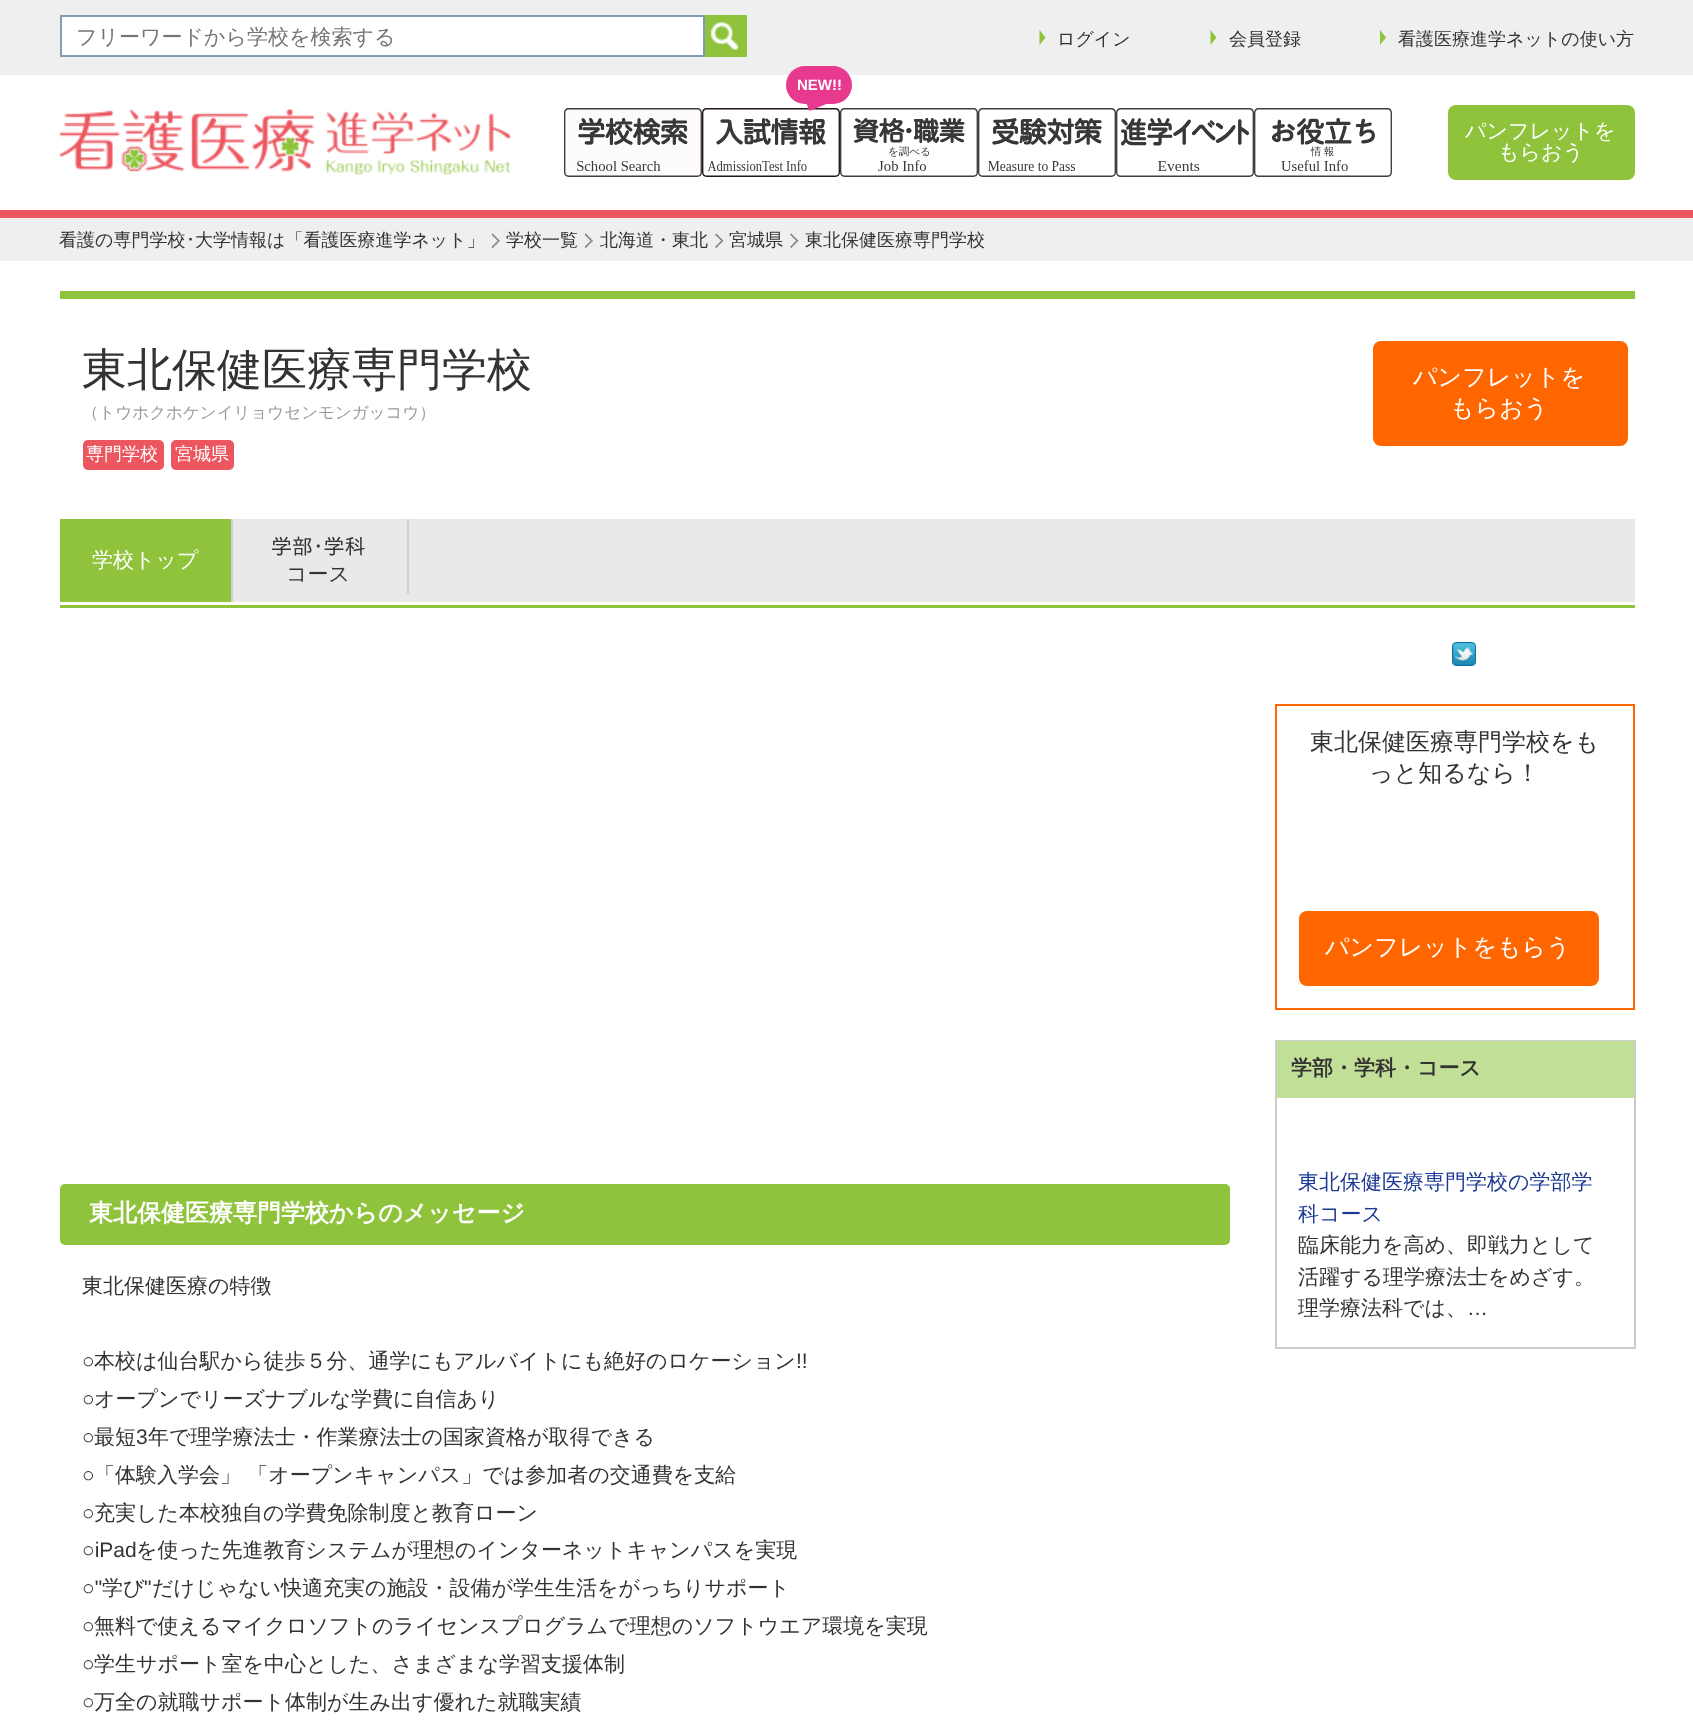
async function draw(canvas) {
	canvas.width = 1693;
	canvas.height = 1723;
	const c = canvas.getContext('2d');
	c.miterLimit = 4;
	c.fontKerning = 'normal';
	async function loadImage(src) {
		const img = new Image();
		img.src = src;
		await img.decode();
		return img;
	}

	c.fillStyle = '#fff';
	c.fillRect(0, 0, 1693, 1723);
	c.fillStyle = '#ec565f';
	c.fillRect(0, 210, 1693, 8);
	c.fillStyle = '#efefef';
	c.fillRect(0, 0, 1693, 75);
	c.fillStyle = '#fff';
	c.beginPath();
	c.rect(61, 16, 643, 40);
	c.fill();
	c.strokeStyle = '#7f9db9';
	c.lineWidth = 2;
	c.stroke();
	c.font = '500 21px WenQuanYi Zen Hei';
	c.fillStyle = '#757575';
	c.fillText('フリーワードから学校を検索する', 76, 44);
	c.fillStyle = '#8ec33b';
	c.fillRect(705, 15, 42, 42);
	c.drawImage(await loadImage('img1.png'), 710, 22, 29, 28);
	c.beginPath();
	c.moveTo(1039.5, 45);
	c.lineTo(1039.5, 30);
	c.lineTo(1045.5, 37.5);
	c.closePath();
	c.fill();
	c.font = '500 18px WenQuanYi Zen Hei';
	c.fillStyle = '#333';
	c.fillText('ログイン', 1057, 45);
	c.fillStyle = '#8ec33b';
	c.beginPath();
	c.moveTo(1210.5, 45);
	c.lineTo(1210.5, 30);
	c.lineTo(1216.5, 37.5);
	c.closePath();
	c.fill();
	c.fillStyle = '#333';
	c.fillText('会員登録', 1229, 45);
	c.fillStyle = '#8ec33b';
	c.beginPath();
	c.moveTo(1380, 45);
	c.lineTo(1380, 30);
	c.lineTo(1386, 37.5);
	c.closePath();
	c.fill();
	c.fillStyle = '#333';
	c.fillText('看護医療進学ネットの使い方', 1398, 45);
	c.fillStyle = '#e7398e';
	c.beginPath();
	c.roundRect(786, 66, 66, 38, 19);
	c.fill();
	c.font = 'bold 15px Liberation Sans';
	c.fillStyle = '#fff';
	c.fillText('NEW!!', 797, 90);
	c.drawImage(await loadImage('img3.png'), 702, 108, 138, 69);
	c.fillStyle = '#e7398e';
	c.beginPath();
	c.moveTo(806.5, 103.5);
	c.lineTo(827.5, 103.5);
	c.lineTo(809.5, 111);
	c.closePath();
	c.fill();
	c.drawImage(await loadImage('img2.png'), 564, 108, 138, 69);
	c.drawImage(await loadImage('img4.png'), 840, 108, 138, 69);
	c.drawImage(await loadImage('img5.png'), 978, 108, 138, 69);
	c.drawImage(await loadImage('img6.png'), 1116, 108, 138, 69);
	c.drawImage(await loadImage('img7.png'), 1254, 108, 138, 69);
	c.drawImage(await loadImage('img8.png'), 60, 109, 450, 66);
	c.fillStyle = '#8ec33b';
	c.beginPath();
	c.roundRect(1448, 105, 187, 75, 8);
	c.fill();
	c.font = '500 21px WenQuanYi Zen Hei';
	c.fillStyle = '#fff';
	c.fillText('パンフレットを', 1465, 138);
	c.fillText('もらおう', 1498, 159);
	c.fillStyle = '#efefef';
	c.fillRect(0, 218, 1693, 43);
	c.font = '500 18px WenQuanYi Zen Hei';
	c.fillStyle = '#333';
	c.fillText('看護の専門学校', 59, 246);
	c.font = '18px IPAPGothic';
	c.fillText('･', 186, 246);
	c.font = '500 18px WenQuanYi Zen Hei';
	c.fillText('大学情報は「看護医療進学ネット」', 195, 246);
	c.drawImage(await loadImage('img9.png'), 492, 233, 8, 15);
	c.fillText('学校一覧', 506, 246);
	c.drawImage(await loadImage('img9.png'), 585, 233, 8, 15);
	c.fillText('北海道・東北', 600, 246);
	c.drawImage(await loadImage('img10.png'), 715, 233, 8, 15);
	c.fillText('宮城県', 729, 246);
	c.drawImage(await loadImage('img11.png'), 790, 233, 8, 15);
	c.fillText('東北保健医療専門学校', 805, 246);
	c.fillStyle = '#8ec33b';
	c.fillRect(60, 291, 1575, 8);
	c.fillRect(60, 605, 1575, 3);
	c.font = '500 45px WenQuanYi Zen Hei';
	c.fillStyle = '#333';
	c.fillText('東北保健医療専門学校', 82, 385);
	c.fillStyle = '#f60';
	c.beginPath();
	c.roundRect(1373, 341, 255, 105, 8);
	c.fill();
	c.font = '500 24px WenQuanYi Zen Hei';
	c.fillStyle = '#fff';
	c.fillText('パンフレットを', 1413, 385);
	c.fillText('もらおう', 1450, 416);
	c.font = '500 16.5px WenQuanYi Zen Hei';
	c.fillStyle = '#999';
	c.fillText('（トウホクホケンイリョウセンモンガッコウ）', 82, 418);
	c.fillStyle = '#ec565f';
	c.beginPath();
	c.roundRect(83, 440, 81, 30, 5);
	c.fill();
	c.font = '500 18px WenQuanYi Zen Hei';
	c.fillStyle = '#fff';
	c.fillText('専門学校', 86, 460);
	c.fillStyle = '#ec565f';
	c.beginPath();
	c.roundRect(171, 440, 63, 30, 5);
	c.fill();
	c.fillStyle = '#fff';
	c.fillText('宮城県', 175, 460);
	for (const [x, y, w, h, color] of [
		[233, 519, 1402, 83, '#e9e9e9'],
		[60, 519, 171, 83, '#8ec33b'],
		[231, 519, 2, 83, '#d2d2d2'],
	]) {
		c.fillStyle = color;
		c.fillRect(x, y, w, h);
	}
	c.font = '500 21px WenQuanYi Zen Hei';
	c.fillStyle = '#fff';
	c.fillText('学校トップ', 92, 567);
	c.fillStyle = '#d2d2d2';
	c.fillRect(407, 519, 2, 75);
	c.font = '21px IPAPGothic';
	c.fillStyle = '#333';
	c.fillText('学部･学科', 271, 554);
	c.font = '500 21px WenQuanYi Zen Hei';
	c.fillText('コース', 286, 581);
	c.drawImage(await loadImage('img12.png'), 1452, 642, 24, 24);
	c.strokeStyle = '#f60';
	c.strokeRect(1276, 705, 358, 304);
	c.font = '500 24px WenQuanYi Zen Hei';
	c.fillText('東北保健医療専門学校をも', 1310, 750);
	c.fillText('っと知るなら！', 1369, 781);
	c.fillStyle = '#f60';
	c.beginPath();
	c.roundRect(1299, 911, 300, 75, 8);
	c.fill();
	c.fillStyle = '#fff';
	c.fillText('パンフレットをもらう', 1325, 955);
	for (const [x, y, w, h, color] of [
		[1275, 1040, 360, 1, '#ccc'],
		[1634, 1040, 2, 309, '#ccc'],
		[1275, 1040, 2, 309, '#ccc'],
		[1277, 1041, 357, 57, '#c2df97'],
	]) {
		c.fillStyle = color;
		c.fillRect(x, y, w, h);
	}
	c.font = 'bold 21px WenQuanYi Zen Hei';
	c.fillStyle = '#333';
	c.fillText('学部・学科・コース', 1291, 1075);
	c.fillStyle = '#ccc';
	c.fillRect(1277, 1347, 357, 2);
	c.font = '500 21px WenQuanYi Zen Hei';
	c.fillStyle = '#1d3994';
	c.fillText('東北保健医療専門学校の学部学', 1298, 1189);
	c.fillText('科コース', 1298, 1221);
	c.fillStyle = '#333';
	for (const [text, x, y] of [
		['臨床能力を高め、即戦力として', 1298, 1252],
		['活躍する理学療法士をめざす。', 1298, 1284],
		['理学療法科では、', 1298, 1315],
	]) {
		c.fillText(text, x, y);
	}
	c.font = '21px Liberation Sans';
	c.fillText('…', 1467, 1315);
	c.fillStyle = '#8ec33b';
	c.beginPath();
	c.roundRect(60, 1184, 1170, 61, 5);
	c.fill();
	c.font = 'bold 24px WenQuanYi Zen Hei';
	c.fillStyle = '#fff';
	c.fillText('東北保健医療専門学校からのメッセージ', 89, 1221);
	c.font = '500 21px WenQuanYi Zen Hei';
	c.fillStyle = '#333';
	c.fillText('東北保健医療の特徴', 82, 1293);
	c.font = '21px Liberation Sans';
	c.fillText('○', 82, 1368);
	c.font = '500 21px WenQuanYi Zen Hei';
	c.fillText('本校は仙台駅から徒歩５分、通学にもアルバイトにも絶好のロケーション', 94, 1368);
	c.font = '21px Liberation Sans';
	c.fillText('!!', 796, 1368);
	c.fillText('○', 82, 1406);
	c.font = '500 21px WenQuanYi Zen Hei';
	c.fillText('オープンでリーズナブルな学費に自信あり', 94, 1406);
	c.font = '21px Liberation Sans';
	c.fillText('○', 82, 1444);
	c.font = '500 21px WenQuanYi Zen Hei';
	c.fillText('最短', 94, 1444);
	c.font = '21px Liberation Sans';
	c.fillText('3', 136, 1444);
	c.font = '500 21px WenQuanYi Zen Hei';
	c.fillText('年で理学療法士・作業療法士の国家資格が取得できる', 148, 1444);
	c.font = '21px Liberation Sans';
	c.fillText('○', 82, 1482);
	c.font = '500 21px WenQuanYi Zen Hei';
	c.fillText('「体験入学会」 「オープンキャンパス」では参加者の交通費を支給', 94, 1482);
	c.font = '21px Liberation Sans';
	c.fillText('○', 82, 1520);
	c.font = '500 21px WenQuanYi Zen Hei';
	c.fillText('充実した本校独自の学費免除制度と教育ローン', 94, 1520);
	c.font = '21px Liberation Sans';
	c.fillText('○iPad', 82, 1557);
	c.font = '500 21px WenQuanYi Zen Hei';
	c.fillText('を使った先進教育システムが理想のインターネットキャンパスを実現', 136, 1557);
	c.font = '21px Liberation Sans';
	c.fillText('○"', 82, 1595);
	c.font = '500 21px WenQuanYi Zen Hei';
	c.fillText('学び', 102, 1595);
	c.font = '21px Liberation Sans';
	c.fillText('"', 144, 1595);
	c.font = '500 21px WenQuanYi Zen Hei';
	c.fillText('だけじゃない快適充実の施設・設備が学生生活をがっちりサポート', 152, 1595);
	c.font = '21px Liberation Sans';
	c.fillText('○', 82, 1633);
	c.font = '500 21px WenQuanYi Zen Hei';
	c.fillText('無料で使えるマイクロソフトのライセンスプログラムで理想のソフトウエア環境を実現', 94, 1633);
	c.font = '21px Liberation Sans';
	c.fillText('○', 82, 1671);
	c.font = '500 21px WenQuanYi Zen Hei';
	c.fillText('学生サポート室を中心とした、さまざまな学習支援体制', 94, 1671);
	c.font = '21px Liberation Sans';
	c.fillText('○', 82, 1709);
	c.font = '500 21px WenQuanYi Zen Hei';
	c.fillText('万全の就職サポート体制が生み出す優れた就職実績', 94, 1709);
}

draw(document.querySelector('canvas'));
